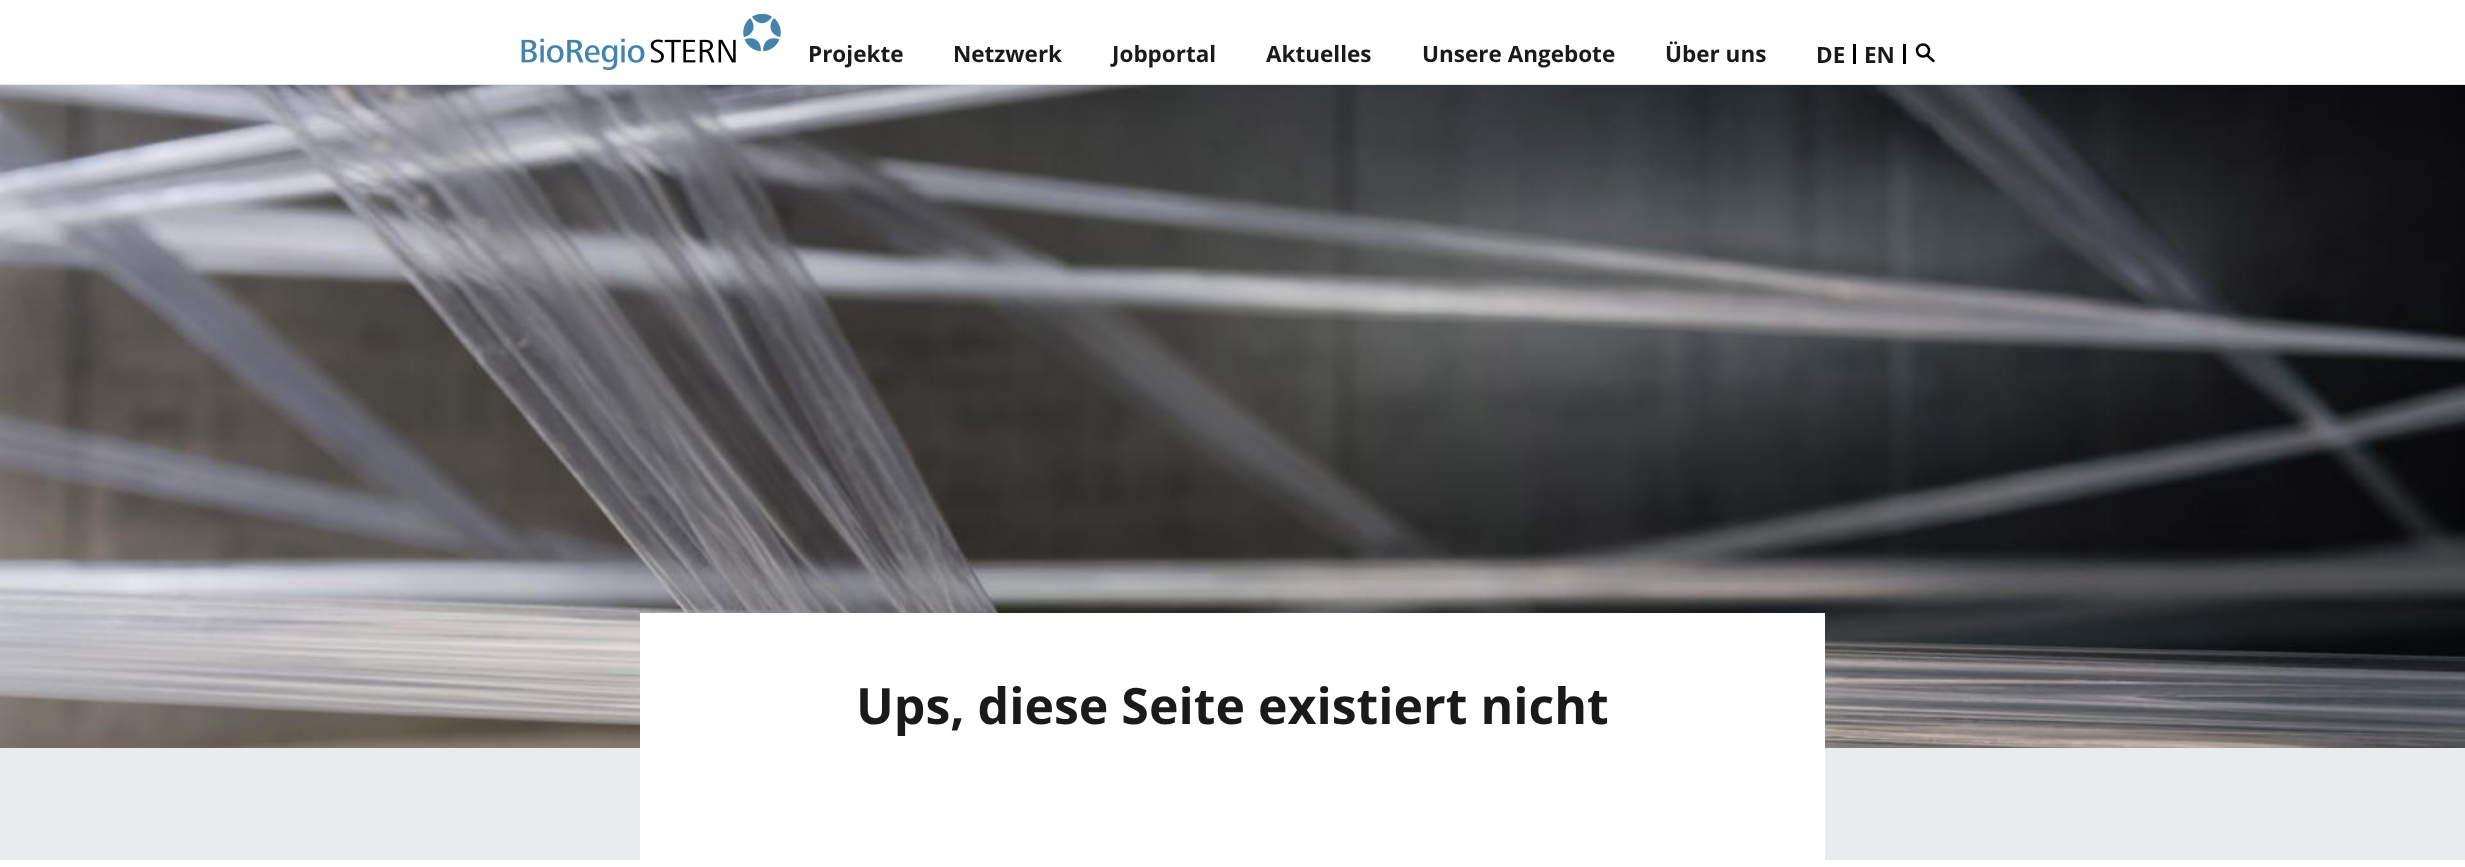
async function draw(canvas) {
	canvas.width = 2465;
	canvas.height = 867;
	const c = canvas.getContext('2d');
	c.miterLimit = 4;
	c.fontKerning = 'normal';
	async function loadImage(src) {
		const img = new Image();
		img.src = src;
		await img.decode();
		return img;
	}

	c.fillStyle = '#fff';
	c.fillRect(0, 0, 2465, 867);
	c.fillStyle = '#e7e7e7';
	c.fillRect(0, 84, 2465, 1);
	c.drawImage(await loadImage('img1.png'), 521, 14, 260, 56);
	c.font = 'bold 22.5px Open Sans';
	c.fillStyle = '#1a1a1a';
	for (const [text, x, y] of [
		['Projekte', 808, 62],
		['Netzwerk', 953, 62],
		['Jobportal', 1112, 62],
		['Aktuelles', 1266, 62],
		['Unsere Angebote', 1422, 62],
		['Über uns', 1665, 62],
		['DE', 1816, 63],
	]) {
		c.fillText(text, x, y);
	}
	c.fillStyle = '#000';
	c.fillRect(1853, 44, 3, 20);
	c.fillStyle = '#1a1a1a';
	c.fillText('EN', 1864, 63);
	c.fillStyle = '#000';
	c.fillRect(1903, 44, 3, 20);
	c.beginPath();
	c.arc(1923, 50.5, 6, 0, 2 * Math.PI);
	c.strokeStyle = '#000';
	c.lineWidth = 2.5;
	c.stroke();
	c.beginPath();
	c.moveTo(1928, 56);
	c.lineTo(1933.5, 61);
	c.lineCap = 'round';
	c.stroke();
	c.drawImage(await loadImage('img2.png'), 0, 85, 2465, 663);
	c.fillStyle = '#eaebec';
	c.fillRect(0, 748, 2465, 112);
	c.fillStyle = '#fff';
	c.fillRect(640, 613, 1185, 247);
	c.font = 'bold 50px Open Sans';
	c.fillStyle = '#1a1a1a';
	c.fillText('Ups, diese Seite existiert nicht', 856, 724);
}

draw(document.querySelector('canvas'));
